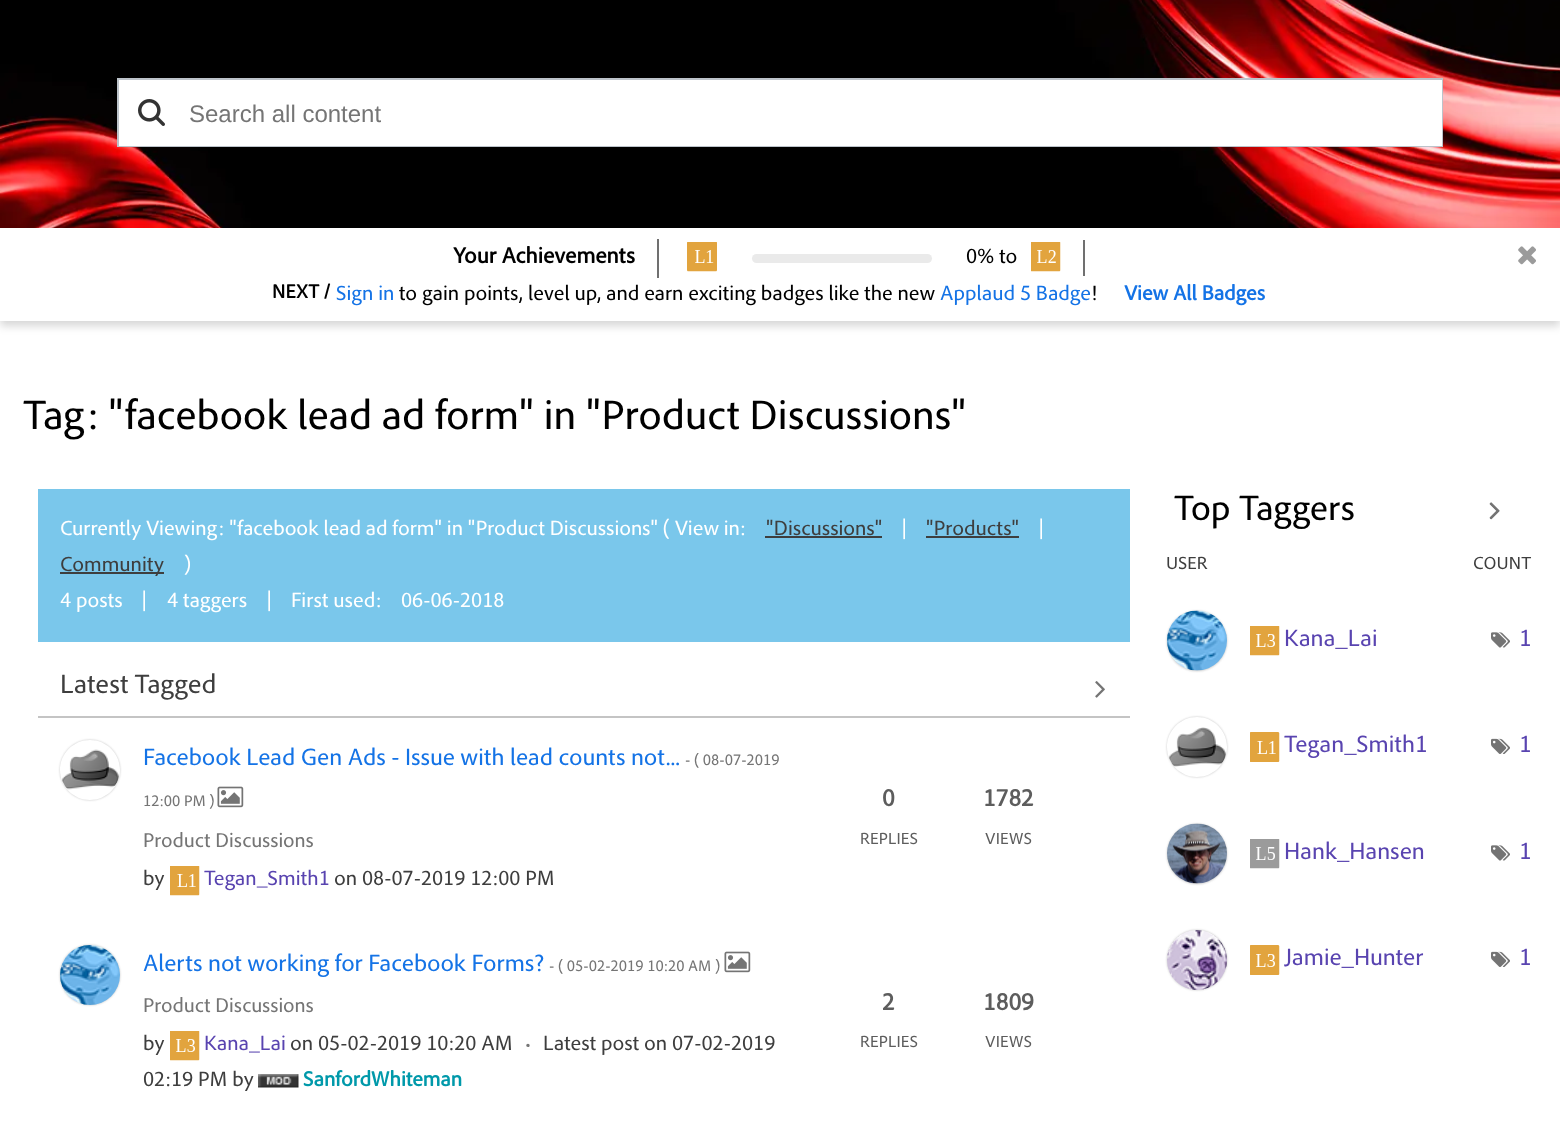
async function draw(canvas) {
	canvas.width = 1560;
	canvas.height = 1131;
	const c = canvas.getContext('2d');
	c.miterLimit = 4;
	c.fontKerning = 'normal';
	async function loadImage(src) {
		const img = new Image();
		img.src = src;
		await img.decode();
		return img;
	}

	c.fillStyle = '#fff';
	c.fillRect(0, 0, 1560, 1131);
	c.drawImage(await loadImage('img1.png'), 0, 0, 1560, 228);
	c.strokeStyle = '#bcc3ca';
	c.lineWidth = 2;
	c.strokeRect(118, 79, 1324, 67);
	c.fillRect(119, 80, 1323, 66);
	c.drawImage(await loadImage('img2.png'), 138, 99, 27, 27);
	c.font = '24px Liberation Sans';
	c.fillStyle = '#757575';
	c.fillText('Search all content', 189, 122);
	c.fillStyle = '#00000029';
	c.filter = 'blur(4.5px)';
	c.beginPath();
	c.rect(0, 233, 1560, 93);
	c.fill();
	c.filter = 'none';
	c.fillStyle = '#fff';
	c.fillRect(0, 228, 1560, 93);
	c.fillStyle = '#707070';
	c.fillRect(657, 239, 2, 39);
	c.font = 'bold 22.5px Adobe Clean';
	c.fillStyle = '#000';
	c.fillText('Your Achievements', 453, 263);
	c.fillStyle = '#707070';
	c.fillRect(1083, 240, 2, 36);
	c.drawImage(await loadImage('img3.png'), 687, 242, 30, 30);
	c.fillStyle = '#eaeaea';
	c.beginPath();
	c.roundRect(752, 254, 180, 9, 4.5);
	c.fill();
	c.font = '21px Adobe Clean';
	c.fillStyle = '#000';
	c.fillText('0% to', 966, 263);
	c.drawImage(await loadImage('img4.png'), 1031, 242, 30, 30);
	c.drawImage(await loadImage('img5.png'), 1518, 246, 18, 19);
	c.font = 'bold 19.5px Adobe Clean';
	c.fillText('NEXT /', 272, 298);
	c.font = '21px Adobe Clean';
	c.fillStyle = '#1473e6';
	c.fillText('Sign in', 336, 300);
	c.fillStyle = '#000';
	c.fillText('to gain points, level up, and earn exciting badges like the new', 399, 300);
	c.fillStyle = '#1473e6';
	c.fillText('Applaud 5 Badge', 940, 300);
	c.fillStyle = '#000';
	c.fillText('!', 1091, 300);
	c.font = 'bold 21px Adobe Clean';
	c.fillStyle = '#1473e6';
	c.fillText('View All Badges', 1124, 300);
	c.font = '42px Adobe Clean';
	c.fillStyle = '#000';
	c.fillText('Tag: "facebook lead ad form" in "Product Discussions"', 23, 429);
	c.fillStyle = '#7ac7eb';
	c.fillRect(38, 489, 1092, 153);
	c.font = '21px Adobe Clean';
	c.fillStyle = '#fff';
	c.fillText('Currently Viewing: "facebook lead ad form" in "Product Discussions" ( View in:', 60, 535);
	c.fillStyle = '#3e3e3e';
	c.fillText('"Discussions"', 766, 535);
	c.fillRect(765, 536, 117, 2);
	c.fillStyle = '#fff';
	c.fillText('|', 902, 535);
	c.fillStyle = '#3e3e3e';
	c.fillText('"Products"', 926, 535);
	c.fillRect(926, 536, 93, 2);
	c.fillStyle = '#fff';
	c.fillText('|', 1039, 535);
	c.fillStyle = '#3e3e3e';
	c.fillRect(60, 572, 104, 2);
	c.fillText('Community', 60, 571);
	c.fillStyle = '#fff';
	for (const [text, x, y] of [
		[')', 184, 571],
		['4 posts', 60, 607],
		['|', 142, 607],
		['4 taggers', 167, 607],
		['|', 267, 607],
		['First used:', 291, 607],
		['06-06-2018', 401, 607],
	]) {
		c.fillText(text, x, y);
	}
	c.fillStyle = '#c4c4c4';
	c.fillRect(38, 716, 1092, 2);
	c.font = '27px Adobe Clean';
	c.fillStyle = '#3e3e3e';
	c.fillText('Latest Tagged', 60, 693);
	c.drawImage(await loadImage('img6.png'), 1095, 681, 10, 17);
	c.save();
	c.beginPath();
	c.moveTo(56, 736);
	c.lineTo(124, 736);
	c.lineTo(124, 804);
	c.lineTo(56, 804);
	c.closePath();
	c.moveTo(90, 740);
	c.bezierCurveTo(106.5, 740, 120, 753.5, 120, 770);
	c.bezierCurveTo(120, 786.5, 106.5, 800, 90, 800);
	c.bezierCurveTo(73.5, 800, 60, 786.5, 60, 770);
	c.bezierCurveTo(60, 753.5, 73.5, 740, 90, 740);
	c.closePath();
	c.clip('evenodd');
	c.fillStyle = '#c4c4c4';
	c.filter = 'blur(1px)';
	c.beginPath();
	c.roundRect(60, 740, 60, 60, 30);
	c.fill();
	c.filter = 'none';
	c.restore();
	c.drawImage(await loadImage('img7.png'), 62, 749, 57, 41);
	c.font = '24px Adobe Clean';
	c.fillStyle = '#1473e6';
	c.fillText('Facebook Lead Gen Ads - Issue with lead counts not...', 143, 765);
	c.font = '15.6px Adobe Clean';
	c.fillStyle = '#757575';
	c.fillText('- ( 08-07-2019', 685, 765);
	c.fillText('12:00 PM )', 143, 806);
	c.drawImage(await loadImage('img8.png'), 217, 786, 27, 22);
	c.font = '20.5px Adobe Clean';
	c.fillText('Product Discussions', 143, 847);
	c.font = '21px Adobe Clean';
	c.fillStyle = '#3e3e3e';
	c.fillText('by', 143, 885);
	c.drawImage(await loadImage('img9.png'), 170, 866, 30, 30);
	c.fillStyle = '#5944b0';
	c.fillText('Tegan_Smith1', 204, 885);
	c.fillStyle = '#3e3e3e';
	c.fillText('on 08-07-2019 12:00 PM', 334, 885);
	c.font = 'bold 24px Adobe Clean';
	c.fillStyle = '#5d5d5d';
	c.fillText('0', 882, 806);
	c.font = '16.5px Adobe Clean';
	c.fillText('REPLIES', 860, 844);
	c.font = 'bold 24px Adobe Clean';
	c.fillText('1782', 983, 806);
	c.font = '16.5px Adobe Clean';
	c.fillText('VIEWS', 985, 844);
	c.fillStyle = '#c4c4c4';
	c.filter = 'blur(1px)';
	c.beginPath();
	c.roundRect(60, 945, 60, 60, 30);
	c.fill();
	c.filter = 'none';
	c.drawImage(await loadImage('img10.png'), 60, 945, 60, 60);
	c.font = '24px Adobe Clean';
	c.fillStyle = '#1473e6';
	c.fillText('Alerts not working for Facebook Forms?', 143, 971);
	c.font = '15.6px Adobe Clean';
	c.fillStyle = '#757575';
	c.fillText('- ( 05-02-2019 10:20 AM )', 549, 971);
	c.drawImage(await loadImage('img8.png'), 724, 951, 27, 22);
	c.font = '20.5px Adobe Clean';
	c.fillText('Product Discussions', 143, 1012);
	c.font = '21px Adobe Clean';
	c.fillStyle = '#3e3e3e';
	c.fillText('by', 143, 1050);
	c.drawImage(await loadImage('img11.png'), 170, 1031, 30, 30);
	c.fillStyle = '#5944b0';
	c.fillText('Kana_Lai', 204, 1050);
	c.fillStyle = '#3e3e3e';
	c.fillText('on 05-02-2019 10:20 AM', 290, 1050);
	c.font = '18px Adobe Clean';
	c.fillStyle = '#757575';
	c.fillText('•', 525, 1050);
	c.font = '21px Adobe Clean';
	c.fillStyle = '#3e3e3e';
	c.fillText('Latest post on 07-02-2019', 543, 1050);
	c.fillText('02:19 PM by', 143, 1086);
	c.drawImage(await loadImage('img12.png'), 258, 1074, 41, 14);
	c.font = 'bold 21px Adobe Clean';
	c.fillStyle = '#09a';
	c.fillText('SanfordWhiteman', 303, 1086);
	c.font = 'bold 24px Adobe Clean';
	c.fillStyle = '#5d5d5d';
	c.fillText('2', 882, 1010);
	c.font = '16.5px Adobe Clean';
	c.fillText('REPLIES', 860, 1047);
	c.font = 'bold 24px Adobe Clean';
	c.fillText('1809', 983, 1010);
	c.font = '16.5px Adobe Clean';
	c.fillText('VIEWS', 985, 1047);
	c.font = '36px Adobe Clean';
	c.fillStyle = '#000';
	c.fillText('Top Taggers', 1174, 520);
	c.drawImage(await loadImage('img13.png'), 1489, 502, 11, 18);
	c.drawImage(await loadImage('img14.png'), 1489, 502, 11, 18);
	c.font = '18px Adobe Clean';
	c.fillStyle = '#3e3e3e';
	c.fillText('USER', 1166, 569);
	c.fillText('COUNT', 1473, 569);
	c.fillStyle = '#c4c4c4';
	c.filter = 'blur(1px)';
	c.beginPath();
	c.roundRect(1167, 611, 60, 60, 30);
	c.fill();
	c.filter = 'none';
	c.drawImage(await loadImage('img15.png'), 1167, 610, 60, 61);
	c.drawImage(await loadImage('img11.png'), 1250, 626, 30, 30);
	c.font = '24px Adobe Clean';
	c.fillStyle = '#5944b0';
	c.fillText('Kana_Lai', 1284, 646);
	c.drawImage(await loadImage('img16.png'), 1491, 632, 19, 16);
	c.fillText('1', 1519, 646);
	c.save();
	c.beginPath();
	c.moveTo(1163, 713);
	c.lineTo(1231, 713);
	c.lineTo(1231, 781);
	c.lineTo(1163, 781);
	c.closePath();
	c.moveTo(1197, 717);
	c.bezierCurveTo(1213.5, 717, 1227, 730.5, 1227, 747);
	c.bezierCurveTo(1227, 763.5, 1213.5, 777, 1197, 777);
	c.bezierCurveTo(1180.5, 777, 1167, 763.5, 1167, 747);
	c.bezierCurveTo(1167, 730.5, 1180.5, 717, 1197, 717);
	c.closePath();
	c.clip('evenodd');
	c.fillStyle = '#c4c4c4';
	c.filter = 'blur(1px)';
	c.beginPath();
	c.roundRect(1167, 717, 60, 60, 30);
	c.fill();
	c.filter = 'none';
	c.restore();
	c.drawImage(await loadImage('img17.png'), 1169, 727, 57, 40);
	c.drawImage(await loadImage('img18.png'), 1250, 732, 30, 30);
	c.fillText('Tegan_Smith1', 1284, 752);
	c.drawImage(await loadImage('img19.png'), 1491, 738, 19, 16);
	c.fillText('1', 1519, 752);
	c.fillStyle = '#c4c4c4';
	c.filter = 'blur(1px)';
	c.beginPath();
	c.roundRect(1167, 824, 60, 60, 30);
	c.fill();
	c.filter = 'none';
	c.drawImage(await loadImage('img20.png'), 1167, 823, 60, 61);
	c.drawImage(await loadImage('img21.png'), 1250, 839, 30, 30);
	c.fillStyle = '#5944b0';
	c.fillText('Hank_Hansen', 1284, 859);
	c.drawImage(await loadImage('img16.png'), 1491, 845, 19, 16);
	c.fillText('1', 1519, 859);
	c.fillStyle = '#c4c4c4';
	c.filter = 'blur(1px)';
	c.beginPath();
	c.roundRect(1167, 930, 60, 60, 30);
	c.fill();
	c.filter = 'none';
	c.drawImage(await loadImage('img22.png'), 1167, 930, 60, 60);
	c.drawImage(await loadImage('img23.png'), 1250, 945, 30, 30);
	c.fillStyle = '#5944b0';
	c.fillText('Jamie_Hunter', 1284, 965);
	c.drawImage(await loadImage('img19.png'), 1491, 951, 19, 16);
	c.fillText('1', 1519, 965);
}

draw(document.querySelector('canvas'));
